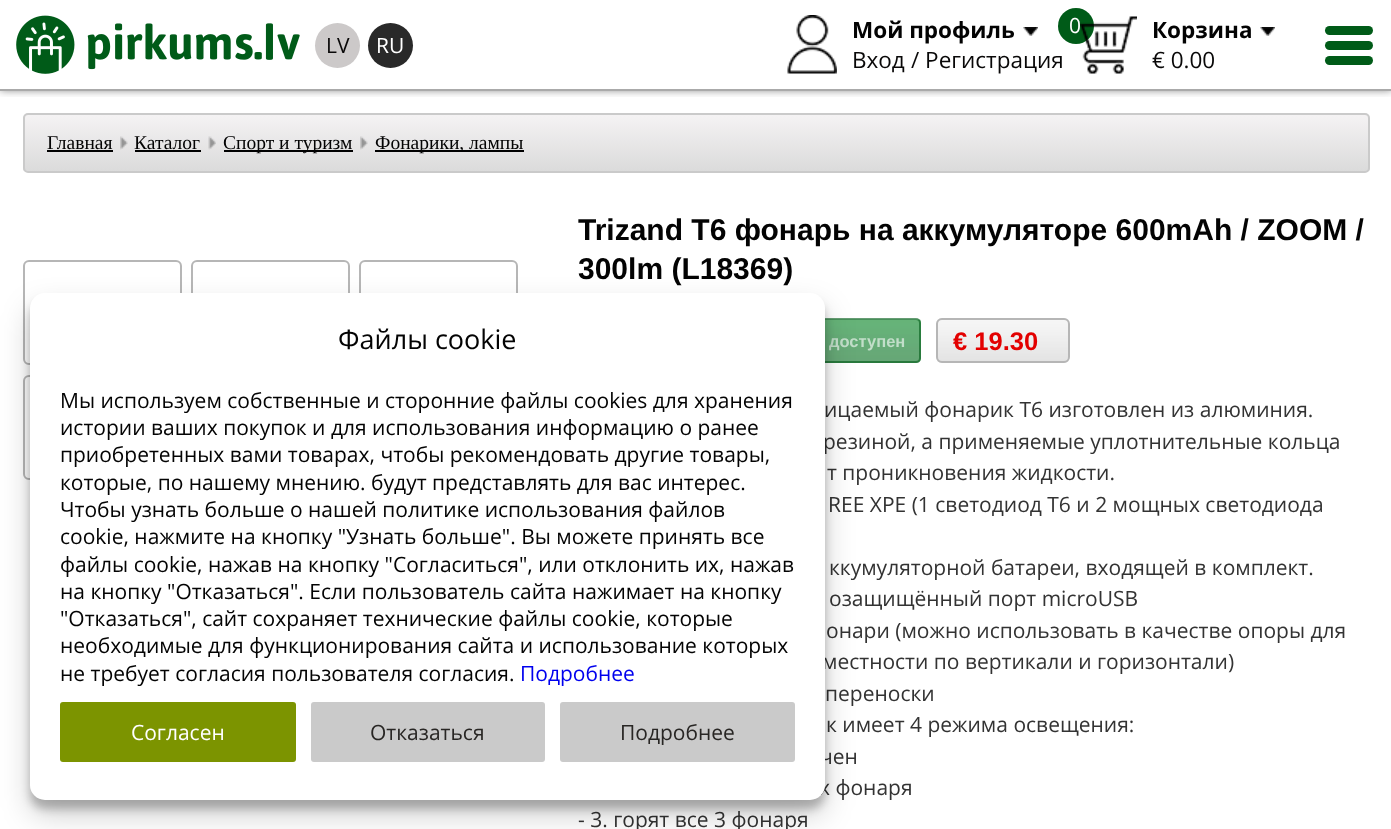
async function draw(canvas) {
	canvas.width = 1391;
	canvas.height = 829;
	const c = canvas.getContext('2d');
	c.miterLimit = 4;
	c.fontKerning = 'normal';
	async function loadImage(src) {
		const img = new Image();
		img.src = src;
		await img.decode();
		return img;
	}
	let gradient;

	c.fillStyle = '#fff';
	c.fillRect(0, 0, 1391, 829);
	c.save();
	c.beginPath();
	c.rect(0, 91, 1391, 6);
	c.clip();
	c.fillStyle = '#00000080';
	c.filter = 'blur(4px)';
	c.beginPath();
	c.rect(0, 0, 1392, 90);
	c.fill();
	c.filter = 'none';
	c.restore();
	c.fillStyle = '#aaa';
	c.fillRect(0, 89, 1391, 2);
	c.drawImage(await loadImage('img1.png'), 16, 15, 284, 59);
	c.fillStyle = '#ccc9c9';
	c.beginPath();
	c.arc(337.5, 45.5, 22.5, 0, 2 * Math.PI);
	c.fill();
	c.font = '21px Open Sans';
	c.fillStyle = '#090808';
	c.fillText('LV', 326, 53);
	c.fillStyle = '#292929';
	c.beginPath();
	c.arc(390.5, 45.5, 22.5, 0, 2 * Math.PI);
	c.fill();
	c.fillStyle = '#fff';
	c.fillText('RU', 376, 53);
	c.drawImage(await loadImage('img2.png'), 787, 15, 50, 59);
	c.font = 'bold 22.5px Open Sans';
	c.fillStyle = '#030303';
	c.fillText('Мой профиль', 852, 38);
	c.drawImage(await loadImage('img3.png'), 1023, 27, 15, 9);
	c.font = '22.5px Open Sans';
	c.fillStyle = '#090808';
	c.fillText('Вход', 852, 68);
	c.fillText('/ Регистрация', 911, 68);
	c.fillStyle = '#005b18';
	c.beginPath();
	c.arc(1076, 26, 18, 0, 2 * Math.PI);
	c.fill();
	c.font = '21px Open Sans';
	c.fillStyle = '#fff';
	c.fillText('0', 1069, 33);
	c.drawImage(await loadImage('img4.png'), 1080, 16, 57, 58);
	c.font = 'bold 22.5px Open Sans';
	c.fillStyle = '#030303';
	c.fillText('Корзина', 1152, 38);
	c.drawImage(await loadImage('img5.png'), 1260, 27, 15, 9);
	c.font = '22.5px Open Sans';
	c.fillStyle = '#090808';
	c.fillText('€ 0.00', 1152, 68);
	c.fillStyle = '#005b18';
	c.beginPath();
	c.roundRect(1325, 26, 48, 9, 4.5);
	c.fill();
	c.beginPath();
	c.roundRect(1325, 41, 48, 9, 4.5);
	c.fill();
	c.beginPath();
	c.roundRect(1325, 56, 48, 9, 4.5);
	c.fill();
	c.save();
	c.beginPath();
	c.roundRect(23, 113, 1347, 60, 5);
	c.clip();
	gradient = c.createLinearGradient(696, 114, 696, 171);
	gradient.addColorStop(0, '#f5f3f4');
	gradient.addColorStop(1, '#dbdbdb');
	c.fillStyle = gradient;
	c.fillRect(23, 114, 1347, 57);
	c.restore();
	c.beginPath();
	c.roundRect(24, 114, 1345, 58, 4);
	c.strokeStyle = '#cacaca';
	c.lineWidth = 2;
	c.stroke();
	c.font = '19.5px Liberation Serif';
	c.fillStyle = '#030303';
	c.fillText('Главная', 47, 149);
	c.fillStyle = '#000';
	c.fillRect(47, 150, 66, 2);
	c.drawImage(await loadImage('img6.png'), 120, 136, 8, 14);
	c.fillStyle = '#030303';
	c.fillText('Каталог', 134, 149);
	c.fillStyle = '#000';
	c.fillRect(135, 150, 66, 2);
	c.drawImage(await loadImage('img7.png'), 208, 136, 8, 14);
	c.fillRect(224, 150, 129, 2);
	c.fillStyle = '#030303';
	c.fillText('Спорт и туризм', 223, 149);
	c.drawImage(await loadImage('img8.png'), 360, 136, 8, 14);
	c.fillStyle = '#000';
	c.fillRect(375, 150, 149, 2);
	c.fillStyle = '#030303';
	c.fillText('Фонарики, лампы', 375, 149);
	c.beginPath();
	c.roundRect(24, 261, 157, 103, 5);
	c.strokeStyle = '#b6b6b6';
	c.stroke();
	c.beginPath();
	c.roundRect(192, 261, 157, 103, 5);
	c.stroke();
	c.beginPath();
	c.roundRect(360, 261, 157, 103, 5);
	c.stroke();
	c.beginPath();
	c.roundRect(24, 376, 157, 103, 5);
	c.stroke();
	c.font = 'bold 30px Liberation Sans';
	c.fillText('Trizand T6 фонарь на аккумуляторе 600mAh / ZOOM /', 578, 240);
	c.fillText('300lm (L18369)', 578, 279);
	c.drawImage(await loadImage('img9.png'), 825, 319, 96, 44);
	c.beginPath();
	c.roundRect(579, 319, 341, 43, 4);
	c.strokeStyle = '#005b1899';
	c.stroke();
	c.font = 'bold 16.5px Liberation Sans';
	c.fillStyle = '#c2dec9';
	c.fillText('доступен', 829, 347);
	c.drawImage(await loadImage('img10.png'), 936, 318, 134, 45);
	c.beginPath();
	c.roundRect(937, 319, 132, 43, 5);
	c.strokeStyle = '#b6b6b6';
	c.stroke();
	c.font = 'bold 25.5px Liberation Sans';
	c.fillStyle = '#e30000';
	c.fillText('€ 19.30', 953, 350);
	c.font = '21px Open Sans';
	c.fillStyle = '#333';
	for (const [text, x, y] of [
		['ицаемый фонарик T6 изготовлен из алюминия.', 824, 417],
		['резиной, а применяемые уплотнительные кольца', 823, 449],
		['т проникновения жидкости.', 827, 480],
		['REE XPE (1 светодиод T6 и 2 мощных светодиода', 828, 512],
		['ккумуляторной батареи, входящей в комплект.', 829, 575],
		['озащищённый порт microUSB', 829, 606],
		['онари (можно использовать в качестве опоры для', 826, 638],
		['местности по вертикали и горизонтали)', 822, 669],
		['переноски', 825, 701],
		['к имеет 4 режима освещения:', 826, 732],
		['чен', 820, 764],
		['х фонаря', 819, 795],
		['- 3. горят все 3 фонаря', 578, 827],
	]) {
		c.fillText(text, x, y);
	}
	c.fillStyle = '#0000003b';
	c.filter = 'blur(4.5px)';
	c.beginPath();
	c.roundRect(30, 302, 795, 507, 15);
	c.fill();
	c.filter = 'none';
	c.fillStyle = '#00000030';
	c.filter = 'blur(15px)';
	c.beginPath();
	c.roundRect(30, 308, 795, 507, 15);
	c.fill();
	c.filter = 'none';
	c.fillStyle = '#fff';
	c.beginPath();
	c.roundRect(30, 293, 795, 507, 15);
	c.fill();
	c.font = '27px Open Sans';
	c.fillStyle = '#030303';
	c.fillText('Файлы cookie', 338, 349);
	c.font = '21px Open Sans';
	for (const [text, x, y] of [
		['Мы используем собственные и сторонние файлы cookies для хранения', 60, 408],
		['истории ваших покупок и для использования информацию о ранее', 60, 435],
		['приобретенных вами товарах, чтобы рекомендовать другие товары,', 60, 462],
		['которые, по нашему мнению. будут представлять для вас интерес.', 60, 490],
		['Чтобы узнать больше о нашей политике использования файлов', 60, 517],
		['cookie, нажмите на кнопку "Узнать больше". Вы можете принять все', 60, 544],
		['файлы cookie, нажав на кнопку "Согласиться", или отклонить их, нажав', 60, 572],
		['на кнопку "Отказаться". Если пользователь сайта нажимает на кнопку', 60, 599],
		['"Отказаться", сайт сохраняет технические файлы cookie, которые', 60, 626],
		['необходимые для функционирования сайта и использование которых', 60, 653],
		['не требует согласия пользователя согласия.', 60, 681],
	]) {
		c.fillText(text, x, y);
	}
	c.fillStyle = '#00e';
	c.fillText('Подробнее', 520, 681);
	c.fillStyle = '#7c9400';
	c.beginPath();
	c.roundRect(60, 702, 236, 60, 3);
	c.fill();
	c.fillStyle = '#fff';
	c.fillText('Согласен', 131, 740);
	c.fillStyle = '#cacaca';
	c.beginPath();
	c.roundRect(311, 702, 234, 60, 3);
	c.fill();
	c.fillStyle = '#282624';
	c.fillText('Отказаться', 370, 740);
	c.fillStyle = '#cacaca';
	c.beginPath();
	c.roundRect(560, 702, 235, 60, 3);
	c.fill();
	c.fillStyle = '#282624';
	c.fillText('Подробнее', 620, 740);
}

draw(document.querySelector('canvas'));
